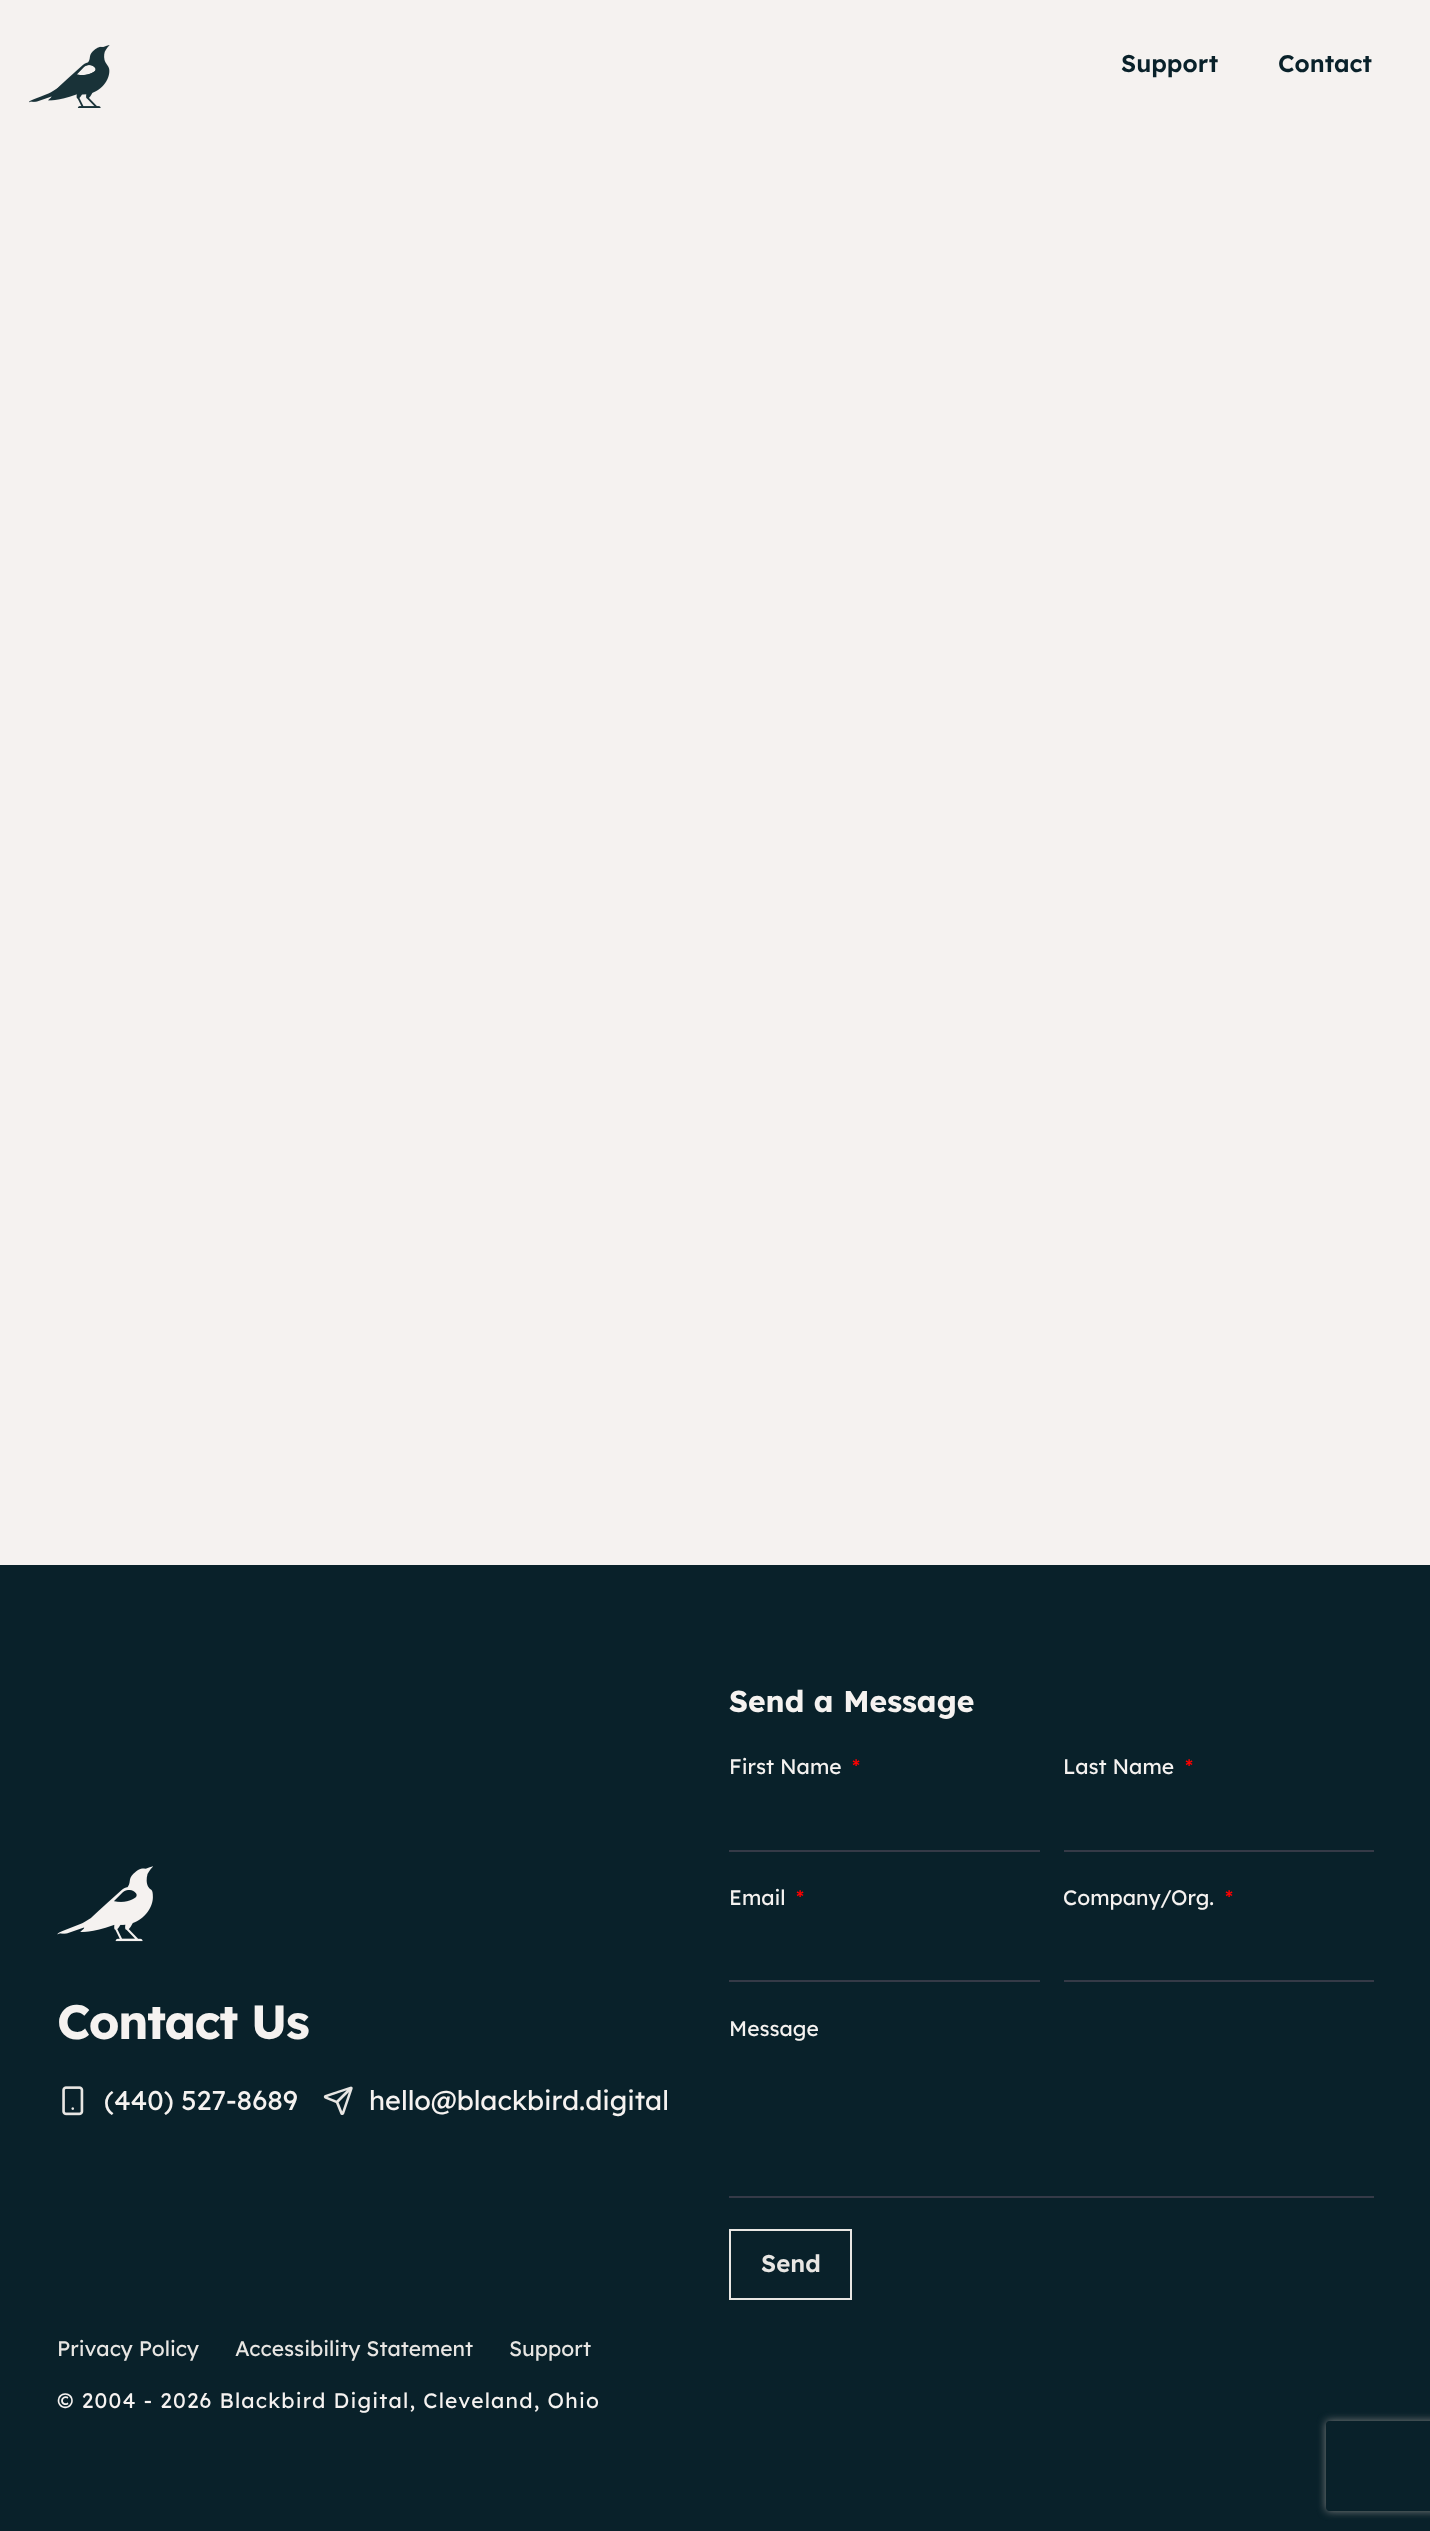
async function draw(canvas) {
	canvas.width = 1430;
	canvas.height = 2531;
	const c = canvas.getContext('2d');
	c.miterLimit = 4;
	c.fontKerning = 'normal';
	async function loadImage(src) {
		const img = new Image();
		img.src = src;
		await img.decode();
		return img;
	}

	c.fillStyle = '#f5f2f0';
	c.fillRect(0, 0, 1430, 2531);
	c.drawImage(await loadImage('img1.png'), 29, 45, 81, 63);
	c.font = '600 24px Lexend';
	c.fillStyle = '#09212a';
	c.fillText('Support', 1121, 72);
	c.fillText('Contact', 1278, 72);
	c.fillRect(0, 1565, 1430, 966);
	c.drawImage(await loadImage('img2.png'), 57, 1866, 96, 76);
	c.letterSpacing = '-1.5px';
	c.font = 'bold 48px Lexend';
	c.fillStyle = '#f5f2f0';
	c.fillText('Contact Us', 57, 2039);
	c.drawImage(await loadImage('img3.png'), 62, 2086, 22, 30);
	c.letterSpacing = '0px';
	c.font = '27px Lexend';
	c.fillText('(440) 527-8689', 104, 2110);
	c.drawImage(await loadImage('img4.png'), 323, 2086, 30, 29);
	c.fillText('hello@blackbird.digital', 369, 2110);
	c.font = 'bold 30px Lexend';
	c.fillText('Send a Message', 729, 1712);
	c.font = '21px Lexend';
	c.fillText('First Name', 729, 1774);
	c.fillStyle = '#f00';
	c.fillText('*', 852, 1774);
	c.fillStyle = '#353a47';
	c.fillRect(729, 1850, 311, 2);
	c.fillStyle = '#f5f2f0';
	c.fillText('Last Name', 1063, 1774);
	c.fillStyle = '#f00';
	c.fillText('*', 1185, 1774);
	c.fillStyle = '#353a47';
	c.fillRect(1064, 1850, 310, 2);
	c.fillStyle = '#f5f2f0';
	c.fillText('Email', 729, 1905);
	c.fillStyle = '#f00';
	c.fillText('*', 796, 1905);
	c.fillStyle = '#353a47';
	c.fillRect(729, 1980, 311, 2);
	c.fillStyle = '#f5f2f0';
	c.fillText('Company/Org.', 1063, 1905);
	c.fillStyle = '#f00';
	c.fillText('*', 1225, 1905);
	c.fillStyle = '#353a47';
	c.fillRect(1064, 1980, 310, 2);
	c.fillStyle = '#f5f2f0';
	c.fillText('Message', 729, 2036);
	c.fillStyle = '#353a47';
	c.fillRect(729, 2196, 645, 2);
	c.strokeStyle = '#e8e6e3';
	c.lineWidth = 2;
	c.strokeRect(730, 2230, 121, 69);
	c.font = '600 24px Lexend';
	c.fillStyle = '#e8e6e3';
	c.fillText('Send', 761, 2272);
	c.save();
	c.beginPath();
	c.moveTo(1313, 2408);
	c.lineTo(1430, 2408);
	c.lineTo(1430, 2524);
	c.lineTo(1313, 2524);
	c.closePath();
	c.moveTo(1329, 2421);
	c.lineTo(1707, 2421);
	c.bezierCurveTo(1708.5, 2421, 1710, 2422.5, 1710, 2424);
	c.lineTo(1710, 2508);
	c.bezierCurveTo(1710, 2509.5, 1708.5, 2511, 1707, 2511);
	c.lineTo(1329, 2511);
	c.bezierCurveTo(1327.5, 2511, 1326, 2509.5, 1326, 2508);
	c.lineTo(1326, 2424);
	c.bezierCurveTo(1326, 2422.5, 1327.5, 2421, 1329, 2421);
	c.closePath();
	c.clip('evenodd');
	c.fillStyle = '#808080';
	c.filter = 'blur(4px)';
	c.beginPath();
	c.roundRect(1326, 2421, 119, 90, 3);
	c.fill();
	c.filter = 'none';
	c.restore();
	c.font = '21px Lexend';
	for (const [text, x, y] of [
		['Privacy Policy', 57, 2356],
		['Accessibility Statement', 235, 2356],
		['Support', 509, 2356],
	]) {
		c.fillText(text, x, y);
	}
	c.letterSpacing = '1.2px';
	c.fillStyle = '#f5f2f0';
	c.fillText('© 2004 - 2026 Blackbird Digital, Cleveland, Ohio', 57, 2408);
}

draw(document.querySelector('canvas'));
